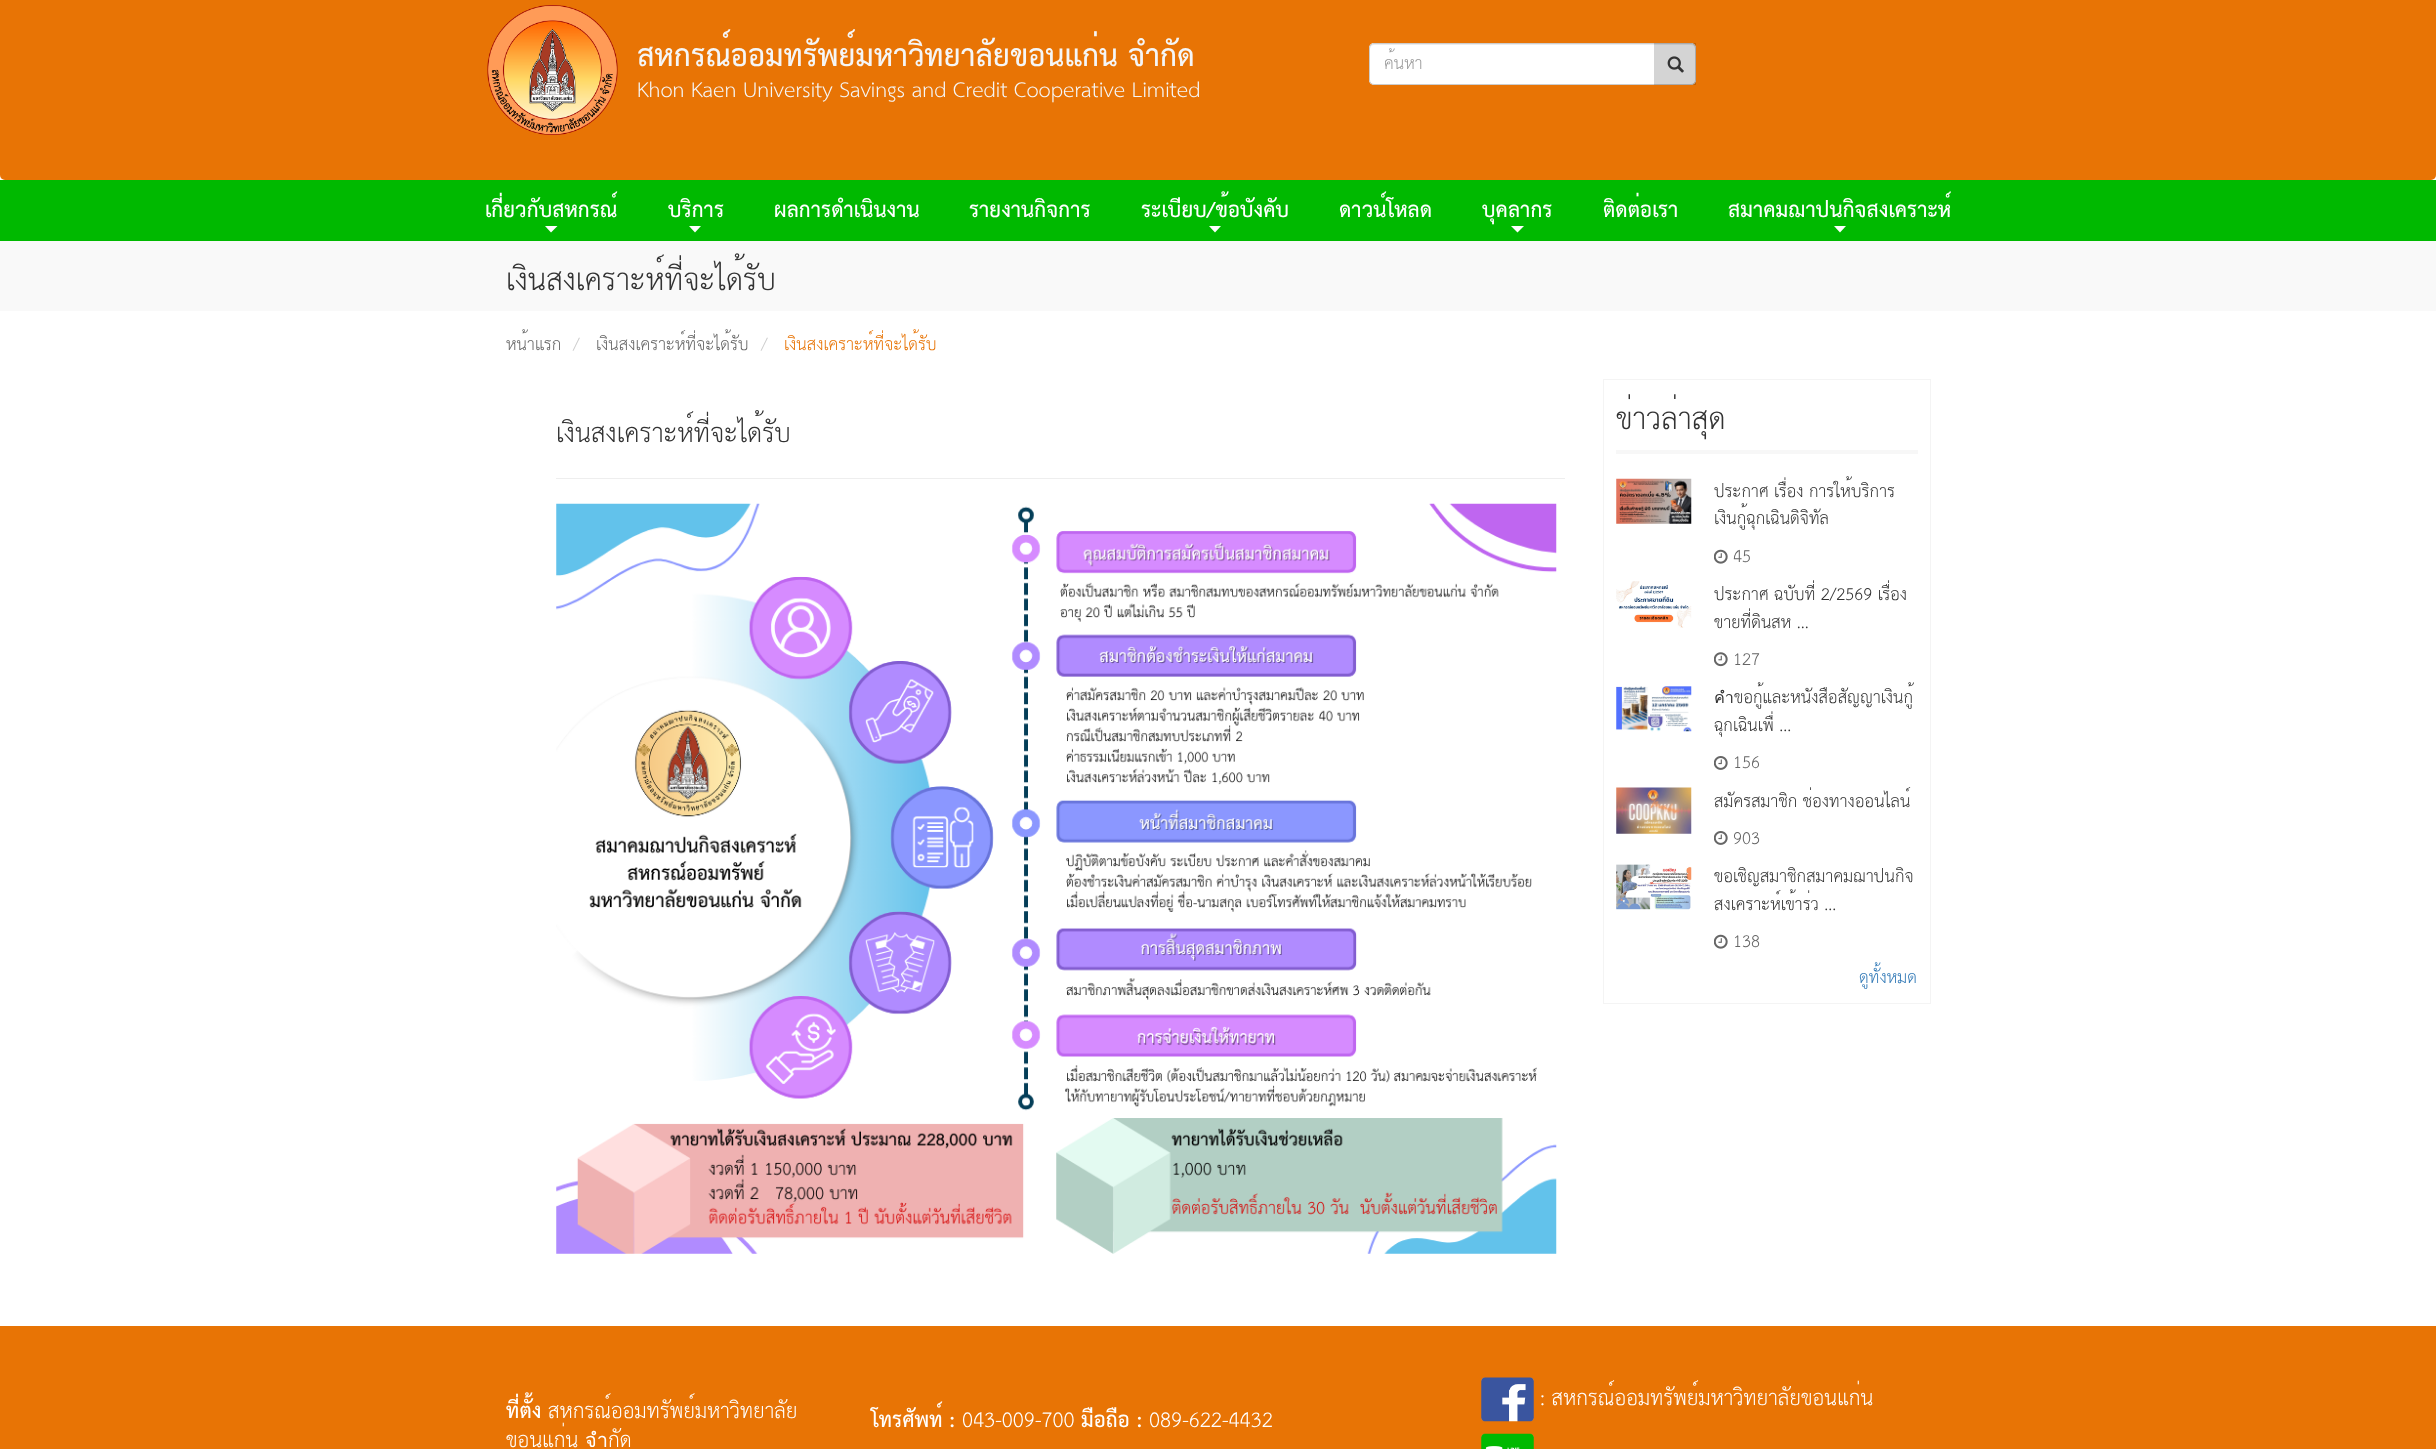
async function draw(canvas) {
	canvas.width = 2436;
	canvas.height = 1449;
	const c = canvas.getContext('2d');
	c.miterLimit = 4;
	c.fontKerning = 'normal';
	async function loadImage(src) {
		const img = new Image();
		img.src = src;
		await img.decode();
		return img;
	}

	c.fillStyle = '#fff';
	c.fillRect(0, 0, 2436, 1449);
	c.fillStyle = '#e87405';
	c.beginPath();
	c.roundRect(0, -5, 2436, 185, 5);
	c.fill();
	c.drawImage(await loadImage('img1.png'), 487, 5, 131, 130);
	c.font = 'bold 28.75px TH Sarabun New';
	c.fillStyle = '#f5f6f7';
	c.fillText('สหกรณ์ออมทรัพย์มหาวิทยาลัยขอนแก่น จำกัด', 637, 66);
	c.font = '20px TH Sarabun New';
	c.fillText('Khon Kaen University Savings and Credit Cooperative Limited', 637, 97);
	c.fillStyle = '#fff';
	c.beginPath();
	c.roundRect(1369, 43, 327, 42, 5);
	c.fill();
	c.fillStyle = '#ececec';
	c.beginPath();
	c.moveTo(1374, 45);
	c.lineTo(1691, 45);
	c.bezierCurveTo(1693, 45, 1695, 47, 1695, 49);
	c.lineTo(1695, 48);
	c.bezierCurveTo(1695, 46, 1693, 44, 1691, 44);
	c.lineTo(1374, 44);
	c.bezierCurveTo(1372, 44, 1370, 46, 1370, 48);
	c.lineTo(1370, 49);
	c.bezierCurveTo(1370, 47, 1372, 45, 1374, 45);
	c.closePath();
	c.fill();
	c.beginPath();
	c.roundRect(1369.5, 43.5, 326, 41, 4.5);
	c.strokeStyle = '#ccc';
	c.stroke();
	c.save();
	c.beginPath();
	c.rect(1385, 48, 258, 32);
	c.clip();
	c.font = '16.25px TH Sarabun New';
	c.fillStyle = '#999';
	c.fillText('ค้นหา', 1384, 69);
	c.restore();
	c.fillStyle = '#1313132e';
	c.fillRect(1654, 43, 42, 42);
	c.drawImage(await loadImage('img2.png'), 1667, 56, 17, 17);
	c.fillStyle = '#00b900';
	c.fillRect(0, 180, 2436, 61);
	c.font = 'bold 20px TH Sarabun New';
	c.fillStyle = '#fff';
	c.fillText('เกี่ยวกับสหกรณ์', 485, 217);
	c.beginPath();
	c.moveTo(545, 226);
	c.lineTo(557.5, 226);
	c.lineTo(551, 232.5);
	c.closePath();
	c.fill();
	c.fillText('บริการ', 668, 217);
	c.beginPath();
	c.moveTo(689, 226);
	c.lineTo(701, 226);
	c.lineTo(695, 232.5);
	c.closePath();
	c.fill();
	for (const [text, x, y] of [
		['ผลการดําเนินงาน', 774, 217],
		['รายงานกิจการ', 969, 217],
		['ระเบียบ/ข้อบังคับ', 1141, 217],
	]) {
		c.fillText(text, x, y);
	}
	c.beginPath();
	c.moveTo(1209, 226);
	c.lineTo(1221, 226);
	c.lineTo(1215, 232.5);
	c.closePath();
	c.fill();
	c.fillText('ดาวน์โหลด', 1339, 217);
	c.fillText('บุคลากร', 1482, 217);
	c.beginPath();
	c.moveTo(1511, 226);
	c.lineTo(1524, 226);
	c.lineTo(1517.5, 232.5);
	c.closePath();
	c.fill();
	c.fillText('ติดต่อเรา', 1603, 217);
	c.fillText('สมาคมฌาปนกิจสงเคราะห์', 1728, 217);
	c.beginPath();
	c.moveTo(1834, 226);
	c.lineTo(1846, 226);
	c.lineTo(1840, 232.5);
	c.closePath();
	c.fill();
	c.fillStyle = '#f9f9f9';
	c.fillRect(0, 241, 2436, 70);
	c.font = '28.75px TH Sarabun New';
	c.fillStyle = '#333';
	c.fillText('เงินสงเคราะห์ที่จะได้รับ', 506, 290);
	c.font = '16.25px TH Sarabun New';
	c.fillStyle = '#666';
	c.fillText('หน้าแรก', 506, 350);
	c.fillStyle = '#ccc';
	c.fillText('/', 573, 350);
	c.fillStyle = '#666';
	c.fillText('เงินสงเคราะห์ที่จะได้รับ', 596, 350);
	c.fillStyle = '#ccc';
	c.fillText('/', 761, 350);
	c.fillStyle = '#e87405';
	c.fillText('เงินสงเคราะห์ที่จะได้รับ', 784, 350);
	c.font = '25px TH Sarabun New';
	c.fillStyle = '#333';
	c.fillText('เงินสงเคราะห์ที่จะได้รับ', 556, 442);
	c.fillStyle = '#eee';
	c.fillRect(556, 478, 1009, 1);
	c.drawImage(await loadImage('img3.png'), 556, 503, 1001, 751);
	c.strokeStyle = '#f4f4f4';
	c.strokeRect(1603.5, 379.5, 327, 624);
	c.font = '28.75px TH Sarabun New';
	c.fillStyle = '#333';
	c.fillText('ข่าวล่าสุด', 1616, 429);
	c.fillStyle = '#f7f7f7';
	c.fillRect(1616, 450, 302, 4);
	c.drawImage(await loadImage('img4.png'), 1616, 478, 76, 46);
	c.font = '16.25px TH Sarabun New';
	c.fillStyle = '#333';
	c.fillText('ประกาศ เรื่อง การให้บริการ', 1714, 497);
	c.fillText('เงินกู้ฉุกเฉินดิจิทัล', 1714, 524);
	c.drawImage(await loadImage('img5.png'), 1714, 549, 14, 15);
	c.fillStyle = '#666';
	c.fillText('45', 1733, 562);
	c.drawImage(await loadImage('img6.png'), 1616, 581, 76, 47);
	c.fillStyle = '#333';
	c.fillText('ประกาศ ฉบับที่ 2/2569 เรื่อง', 1714, 600);
	c.fillText('ขายที่ดินสห ...', 1714, 628);
	c.drawImage(await loadImage('img7.png'), 1714, 652, 14, 15);
	c.fillStyle = '#666';
	c.fillText('127', 1733, 665);
	c.drawImage(await loadImage('img8.png'), 1616, 686, 76, 46);
	c.fillStyle = '#333';
	c.fillText('คำขอกู้และหนังสือสัญญาเงินกู้', 1714, 703);
	c.fillText('ฉุกเฉินเพื่ ...', 1714, 731);
	c.drawImage(await loadImage('img9.png'), 1714, 756, 14, 14);
	c.fillStyle = '#666';
	c.fillText('156', 1733, 768);
	c.drawImage(await loadImage('img10.png'), 1616, 787, 76, 47);
	c.fillStyle = '#333';
	c.fillText('สมัครสมาชิก ช่องทางออนไลน์', 1714, 807);
	c.drawImage(await loadImage('img9.png'), 1714, 831, 14, 14);
	c.fillStyle = '#666';
	c.fillText('903', 1733, 844);
	c.drawImage(await loadImage('img11.png'), 1616, 864, 76, 46);
	c.fillStyle = '#333';
	c.fillText('ขอเชิญสมาชิกสมาคมฌาปนกิจ', 1714, 882);
	c.fillText('สงเคราะห์เข้าร่ว ...', 1714, 910);
	c.drawImage(await loadImage('img5.png'), 1714, 934, 14, 15);
	c.fillStyle = '#666';
	c.fillText('138', 1733, 947);
	c.fillStyle = '#337ab7';
	c.fillText('ดูทั้งหมด', 1859, 983);
	c.fillStyle = '#e87405';
	c.fillRect(0, 1326, 2436, 123);
	c.font = 'bold 20px TH Sarabun New';
	c.fillStyle = '#fff';
	c.fillText('ที่ตั้ง', 506, 1418);
	c.font = '20px TH Sarabun New';
	c.fillText('สหกรณ์ออมทรัพย์มหาวิทยาลัย', 548, 1418);
	c.fillText('ขอนแก่น จำกัด', 506, 1447);
	c.font = 'bold 20px TH Sarabun New';
	c.fillText('โทรศัพท์ :', 871, 1427);
	c.font = '20px TH Sarabun New';
	c.fillText('043-009-700', 962, 1427);
	c.font = 'bold 20px TH Sarabun New';
	c.fillText('มือถือ :', 1081, 1427);
	c.font = '20px TH Sarabun New';
	c.fillText('089-622-4432', 1149, 1427);
	c.drawImage(await loadImage('img12.png'), 1481, 1377, 53, 45);
	c.fillText(': สหกรณ์ออมทรัพย์มหาวิทยาลัยขอนแก่น', 1540, 1405);
	c.drawImage(await loadImage('img13.png'), 1481, 1433, 53, 16);
}

draw(document.querySelector('canvas'));
